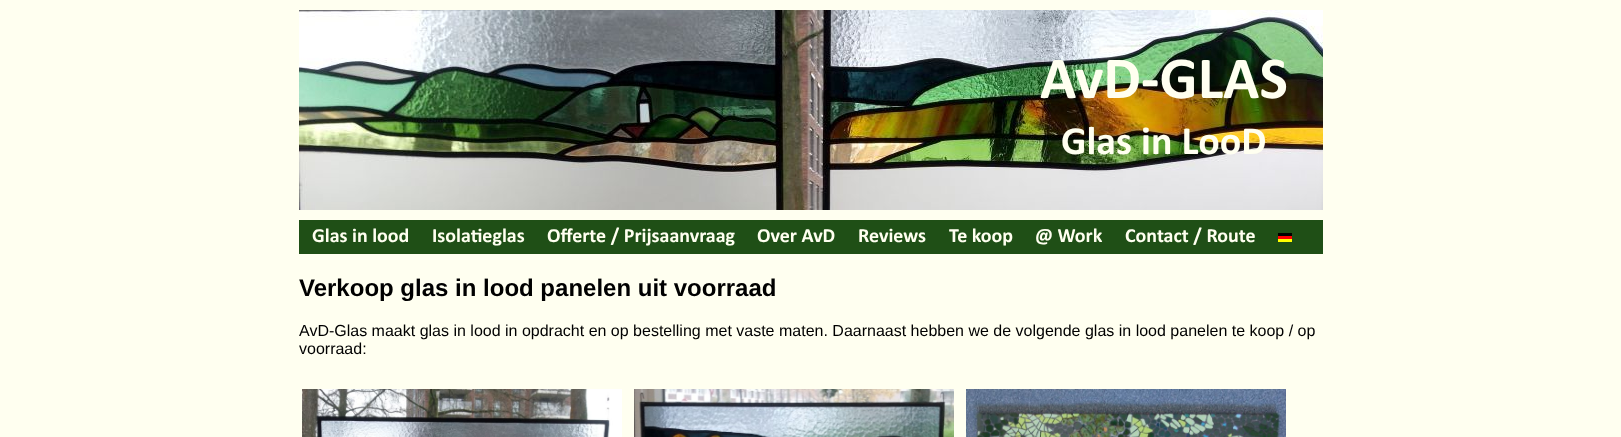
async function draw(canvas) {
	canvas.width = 1621;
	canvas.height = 437;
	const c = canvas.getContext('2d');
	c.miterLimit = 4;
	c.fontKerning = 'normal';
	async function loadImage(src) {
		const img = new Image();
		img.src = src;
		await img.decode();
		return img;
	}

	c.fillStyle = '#fffff0';
	c.fillRect(0, 0, 1621, 437);
	c.drawImage(await loadImage('img1.png'), 299, 10, 1024, 200);
	c.font = 'bold 60px Calibri';
	c.fillText('AvD-GLAS', 1040, 98);
	c.font = 'bold 40px Calibri';
	c.fillText('Glas in LooD', 1061, 154);
	c.fillStyle = '#1f4f16';
	c.fillRect(299, 220, 1024, 34);
	c.font = 'bold 20px Calibri';
	c.fillStyle = '#fffff0';
	for (const [text, x, y] of [
		['Glas in lood', 312, 242],
		['Isolatieglas', 432, 242],
		['Offerte / Prijsaanvraag', 547, 242],
		['Over AvD', 757, 242],
		['Reviews', 858, 242],
		['Te koop', 949, 242],
		['@ Work', 1035, 242],
		['Contact / Route', 1125, 242],
	]) {
		c.fillText(text, x, y);
	}
	c.drawImage(await loadImage('img2.png'), 1278, 233, 14, 9);
	c.font = 'bold 24px Liberation Sans';
	c.fillStyle = '#000';
	c.fillText('Verkoop glas in lood panelen uit voorraad', 299, 296);
	c.font = '16px Liberation Sans';
	c.fillText('AvD-Glas maakt glas in lood in opdracht en op bestelling met vaste maten. Daarnaast hebben we de volgende glas in lood panelen te koop / op', 299, 336);
	c.fillText('voorraad:', 299, 354);
	c.drawImage(await loadImage('img3.png'), 302, 389, 320, 48);
	c.drawImage(await loadImage('img4.png'), 634, 389, 320, 48);
	c.drawImage(await loadImage('img5.png'), 966, 389, 320, 48);
}

draw(document.querySelector('canvas'));
